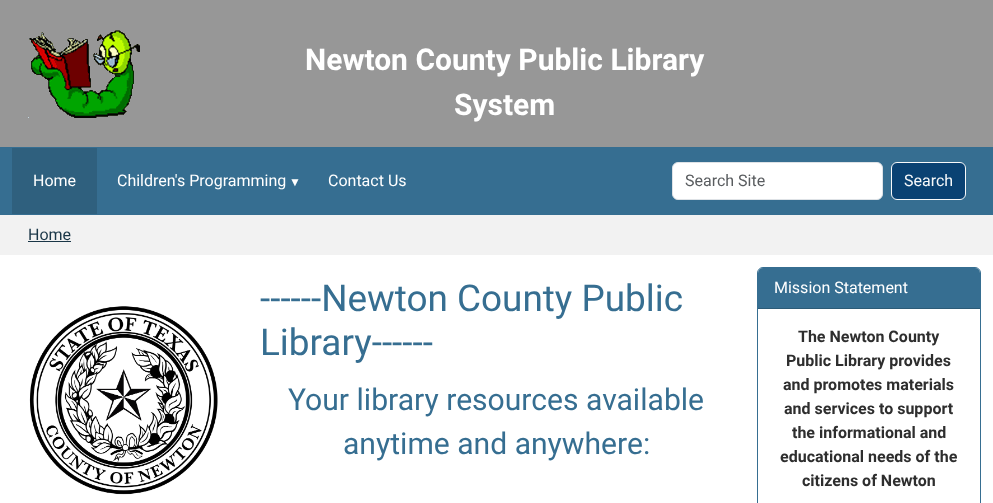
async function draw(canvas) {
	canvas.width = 993;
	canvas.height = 503;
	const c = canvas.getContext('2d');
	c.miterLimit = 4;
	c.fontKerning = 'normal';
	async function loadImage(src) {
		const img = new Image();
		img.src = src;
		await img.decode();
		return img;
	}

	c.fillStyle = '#fff';
	c.fillRect(0, 0, 993, 503);
	c.fillStyle = '#979797';
	c.fillRect(0, 0, 993, 147);
	c.drawImage(await loadImage('img1.png'), 28, 30, 112, 88);
	c.font = 'bold 30px Roboto';
	c.fillStyle = '#fff';
	c.fillText('Newton County Public Library', 305, 70);
	c.fillText('System', 454, 115);
	c.fillStyle = '#366e91';
	c.fillRect(0, 147, 993, 68);
	c.fillStyle = '#2f607e';
	c.fillRect(12, 148, 85, 66);
	c.font = '16px Roboto';
	c.fillStyle = '#fff';
	c.fillText('Home', 33, 186);
	c.fillText('Children\'s Programming', 117, 186);
	c.font = '12px Liberation Sans';
	c.fillText('▼', 289, 186);
	c.font = '16px Roboto';
	c.fillText('Contact Us', 328, 186);
	c.beginPath();
	c.roundRect(672.5, 162.5, 210, 37, 5.5);
	c.fill();
	c.strokeStyle = '#dee2e6';
	c.stroke();
	c.fillStyle = '#595c5f';
	c.fillText('Search Site', 685, 186);
	c.fillStyle = '#0a4273';
	c.beginPath();
	c.roundRect(891.5, 162.5, 74, 37, 5.5);
	c.fill();
	c.strokeStyle = '#f8f9fa';
	c.stroke();
	c.fillStyle = '#f8f9fa';
	c.fillText('Search', 904, 186);
	c.fillStyle = '#f2f2f2';
	c.fillRect(0, 215, 993, 40);
	c.fillStyle = '#1a3647';
	c.fillText('Home', 28, 240);
	c.fillRect(28, 241, 43, 1);
	c.drawImage(await loadImage('img2.png'), 29, 306, 189, 189);
	c.font = '36.9px Roboto';
	c.fillStyle = '#366e91';
	c.fillText('------Newton County Public', 260, 311);
	c.fillText('Library------', 260, 355);
	c.font = '30.1px Roboto';
	c.fillText('Your library resources available', 288, 410);
	c.fillText('anytime and anywhere:', 343, 454);
	c.beginPath();
	c.roundRect(757.5, 267.5, 223, 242, 5.5);
	c.strokeStyle = '#366e91';
	c.stroke();
	c.beginPath();
	c.roundRect(758, 268, 222, 41, [5, 5, 0, 0]);
	c.fill();
	c.fillStyle = '#2c5b77';
	c.fillRect(758, 308, 222, 1);
	c.font = '16px Roboto';
	c.fillStyle = '#fff';
	c.fillText('Mission Statement', 774, 293);
	c.font = 'bold 16px Roboto';
	c.fillStyle = '#2e2e2e';
	for (const [text, x, y] of [
		['The Newton County', 798, 342],
		['Public Library provides', 786, 366],
		['and promotes materials', 783, 390],
		['and services to support', 784, 414],
		['the informational and', 792, 438],
		['educational needs of the', 780, 462],
		['citizens of Newton', 802, 486],
	]) {
		c.fillText(text, x, y);
	}
}

draw(document.querySelector('canvas'));
